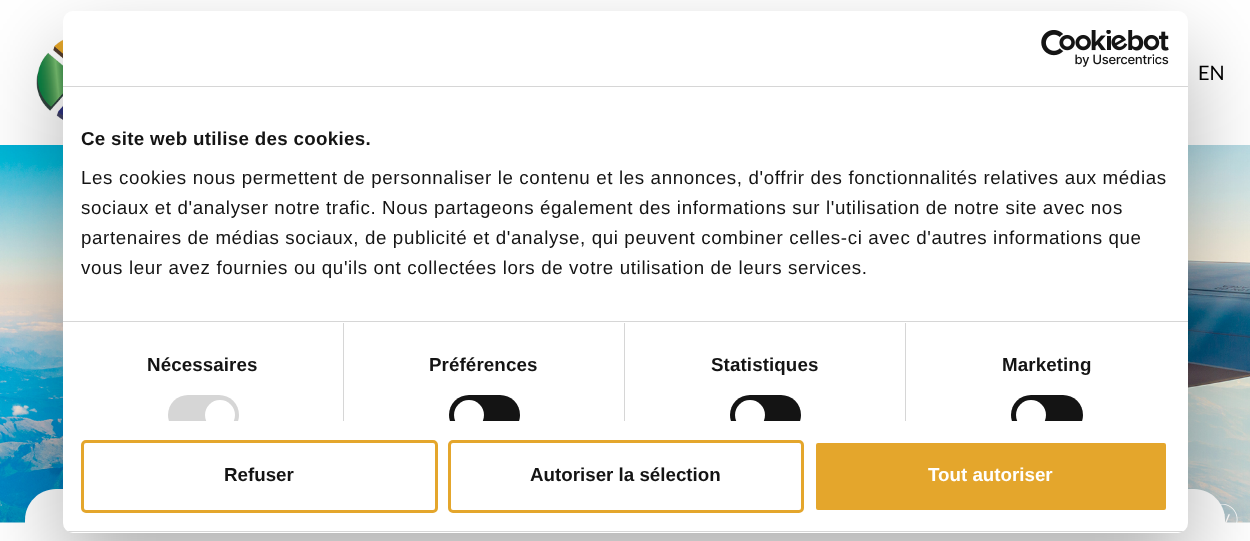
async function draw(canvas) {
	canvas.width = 1250;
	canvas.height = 541;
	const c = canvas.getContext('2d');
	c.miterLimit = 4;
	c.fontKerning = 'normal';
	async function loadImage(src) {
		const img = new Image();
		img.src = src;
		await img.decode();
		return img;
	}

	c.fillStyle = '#fff';
	c.fillRect(0, 0, 1250, 541);
	c.drawImage(await loadImage('img1.png'), 36, 39, 27, 81);
	c.font = '20px Lato';
	c.fillStyle = '#000';
	c.fillText('EN', 1198, 80);
	c.drawImage(await loadImage('img3.png'), 0, 145, 1250, 378);
	c.fillStyle = '#fff';
	c.beginPath();
	c.moveTo(56, 489);
	c.lineTo(1194, 489);
	c.bezierCurveTo(1211, 489, 1225, 503, 1225, 520);
	c.lineTo(1225, 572);
	c.lineTo(25, 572);
	c.lineTo(25, 520);
	c.bezierCurveTo(25, 503, 39, 489, 56, 489);
	c.closePath();
	c.fill();
	c.drawImage(await loadImage('img4.png'), 1220, 504, 18, 19);
	c.fillStyle = '#0000004d';
	c.filter = 'blur(42.5px)';
	c.beginPath();
	c.roundRect(63, 51, 1125, 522, 10);
	c.fill();
	c.filter = 'none';
	c.fillStyle = '#fff';
	c.beginPath();
	c.roundRect(63, 11, 1125, 522, 10);
	c.fill();
	c.fillStyle = '#d6d6d6';
	c.fillRect(63, 86, 1125, 1);
	c.drawImage(await loadImage('img2.png'), 1041, 30, 128, 37);
	c.fillRect(63, 321, 1125, 1);
	c.letterSpacing = '0.3px';
	c.font = 'bold 18.75px Liberation Sans';
	c.fillStyle = '#141414';
	c.fillText('Ce site web utilise des cookies.', 81, 145);
	c.letterSpacing = '0.62px';
	c.font = '18.75px Liberation Sans';
	for (const [text, x, y] of [
		['Les cookies nous permettent de personnaliser le contenu et les annonces, d\'offrir des fonctionnalités relatives aux médias', 81, 184],
		['sociaux et d\'analyser notre trafic. Nous partageons également des informations sur l\'utilisation de notre site avec nos', 81, 214],
		['partenaires de médias sociaux, de publicité et d\'analyse, qui peuvent combiner celles-ci avec d\'autres informations que', 81, 244],
		['vous leur avez fournies ou qu\'ils ont collectées lors de votre utilisation de leurs services.', 81, 274],
	]) {
		c.fillText(text, x, y);
	}
	c.fillStyle = '#d6d6d6';
	c.fillRect(343, 323, 1, 98);
	c.letterSpacing = '0.1px';
	c.font = 'bold 18.75px Liberation Sans';
	c.fillStyle = '#141414';
	c.fillText('Nécessaires', 147, 371);
	c.save();
	c.beginPath();
	c.rect(63, 88, 1125, 333);
	c.clip();
	c.fillStyle = '#d6d6d6';
	c.beginPath();
	c.roundRect(168, 395, 71, 40, 20);
	c.fill();
	c.fillStyle = '#fff';
	c.beginPath();
	c.arc(220, 415, 15, 0, 2 * Math.PI);
	c.fill();
	c.restore();
	c.fillStyle = '#d6d6d6';
	c.fillRect(624, 323, 1, 98);
	c.fillStyle = '#141414';
	c.fillText('Préférences', 429, 371);
	c.save();
	c.beginPath();
	c.rect(63, 88, 1125, 333);
	c.clip();
	c.beginPath();
	c.roundRect(449, 395, 71, 40, 20);
	c.fill();
	c.fillStyle = '#fff';
	c.beginPath();
	c.arc(469, 415, 15, 0, 2 * Math.PI);
	c.fill();
	c.restore();
	c.fillStyle = '#d6d6d6';
	c.fillRect(905, 323, 1, 98);
	c.fillStyle = '#141414';
	c.fillText('Statistiques', 711, 371);
	c.save();
	c.beginPath();
	c.rect(63, 88, 1125, 333);
	c.clip();
	c.beginPath();
	c.roundRect(730, 395, 71, 40, 20);
	c.fill();
	c.fillStyle = '#fff';
	c.beginPath();
	c.arc(750, 415, 15, 0, 2 * Math.PI);
	c.fill();
	c.restore();
	c.fillText('Marketing', 1002, 371);
	c.save();
	c.beginPath();
	c.rect(63, 88, 1125, 333);
	c.clip();
	c.beginPath();
	c.roundRect(1011, 395, 72, 40, 20);
	c.fill();
	c.fillStyle = '#fff';
	c.beginPath();
	c.arc(1031, 415, 15, 0, 2 * Math.PI);
	c.fill();
	c.restore();
	c.save();
	c.beginPath();
	c.roundRect(63, 11, 1125, 522, 10);
	c.clip();
	c.fillStyle = '#d6d6d6';
	c.fillRect(63, 531, 1125, 1);
	c.restore();
	c.beginPath();
	c.roundRect(82.5, 441.5, 354, 70, 3.5);
	c.strokeStyle = '#e4a62c';
	c.lineWidth = 3;
	c.stroke();
	c.letterSpacing = '0px';
	c.fillText('Refuser', 224, 481);
	c.beginPath();
	c.roundRect(449.5, 441.5, 353, 70, 3.5);
	c.stroke();
	c.fillText('Autoriser la sélection', 530, 481);
	c.fillStyle = '#e4a62c';
	c.beginPath();
	c.roundRect(814.5, 441.5, 353, 70, 3.5);
	c.fill();
	c.strokeStyle = '#fff';
	c.stroke();
	c.fillStyle = '#fff';
	c.fillText('Tout autoriser', 928, 481);
}

draw(document.querySelector('canvas'));
